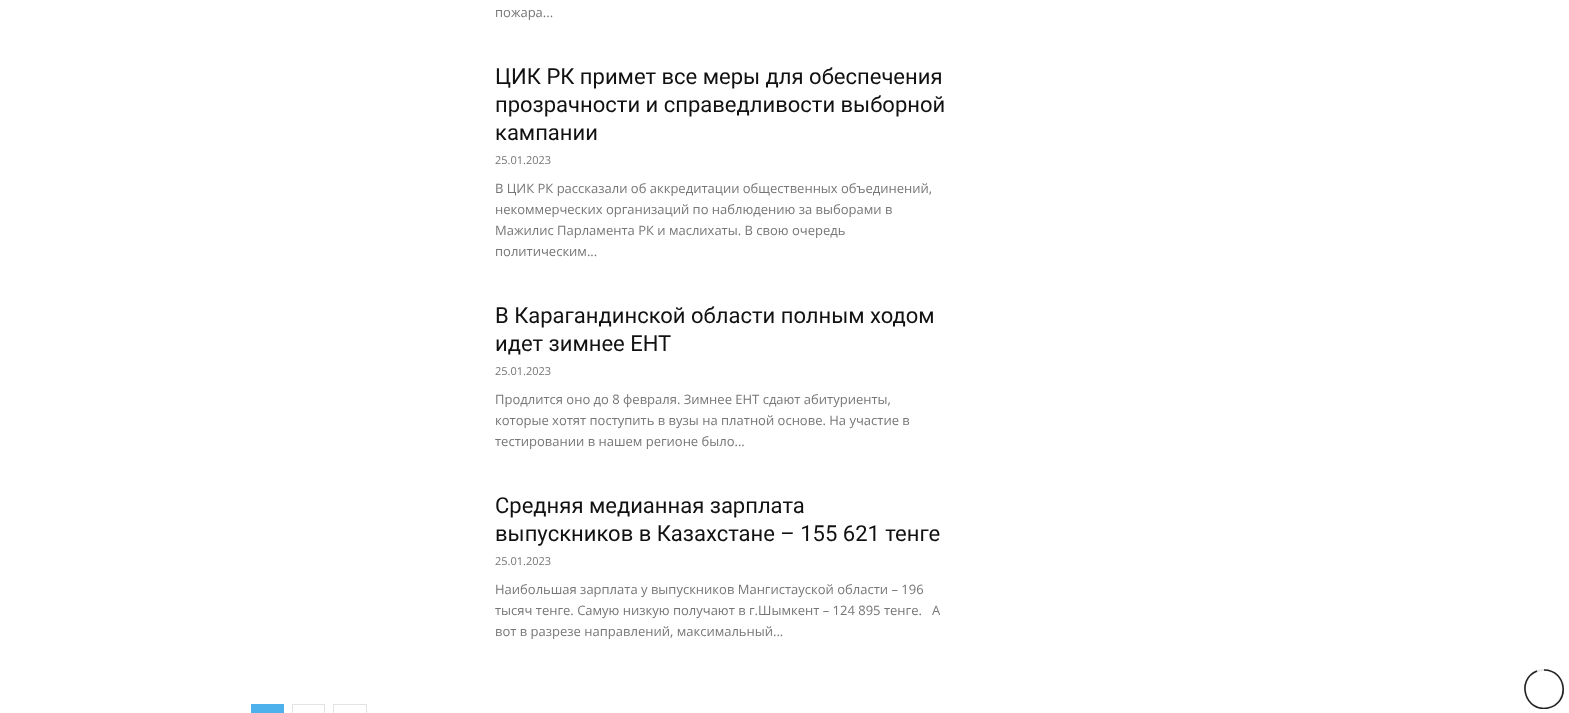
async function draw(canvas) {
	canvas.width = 1569;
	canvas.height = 713;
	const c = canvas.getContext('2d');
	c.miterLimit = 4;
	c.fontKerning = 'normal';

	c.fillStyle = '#fff';
	c.fillRect(0, 0, 1569, 713);
	c.font = '13px Open Sans';
	c.fillStyle = '#767676';
	c.fillText('пожара...', 495, 17);
	c.font = '22px Roboto';
	c.fillStyle = '#111';
	for (const [text, x, y] of [
		['ЦИК РК примет все меры для обеспечения', 495, 84],
		['прозрачности и справедливости выборной', 495, 112],
		['кампании', 495, 140],
	]) {
		c.fillText(text, x, y);
	}
	c.font = '11px Open Sans';
	c.fillStyle = '#767676';
	c.fillText('25.01.2023', 495, 164);
	c.font = '13px Open Sans';
	for (const [text, x, y] of [
		['В ЦИК РК рассказали об аккредитации общественных объединений,', 495, 193],
		['некоммерческих организаций по наблюдению за выборами в', 495, 214],
		['Мажилис Парламента РК и маслихаты. В свою очередь', 495, 235],
		['политическим...', 495, 256],
	]) {
		c.fillText(text, x, y);
	}
	c.font = '22px Roboto';
	c.fillStyle = '#111';
	c.fillText('В Карагандинской области полным ходом', 495, 323);
	c.fillText('идет зимнее ЕНТ', 495, 351);
	c.font = '11px Open Sans';
	c.fillStyle = '#767676';
	c.fillText('25.01.2023', 495, 375);
	c.font = '13px Open Sans';
	for (const [text, x, y] of [
		['Продлится оно до 8 февраля. Зимнее ЕНТ сдают абитуриенты,', 495, 404],
		['которые хотят поступить в вузы на платной основе. На участие в', 495, 425],
		['тестировании в нашем регионе было...', 495, 446],
	]) {
		c.fillText(text, x, y);
	}
	c.font = '22px Roboto';
	c.fillStyle = '#111';
	c.fillText('Средняя медианная зарплата', 495, 513);
	c.fillText('выпускников в Казахстане – 155 621 тенге', 495, 541);
	c.font = '11px Open Sans';
	c.fillStyle = '#767676';
	c.fillText('25.01.2023', 495, 565);
	c.font = '13px Open Sans';
	for (const [text, x, y] of [
		['Наибольшая зарплата у выпускников Мангистауской области – 196', 495, 594],
		['тысяч тенге. Самую низкую получают в г.Шымкент – 124 895 тенге.   А', 495, 615],
		['вот в разрезе направлений, максимальный...', 495, 636],
	]) {
		c.fillText(text, x, y);
	}
	c.fillStyle = '#4db2ec';
	c.fillRect(251, 704, 33, 9);
	c.strokeStyle = '#e3e3e3';
	c.strokeRect(292.5, 704.5, 32, 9);
	c.strokeRect(333.5, 704.5, 33, 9);
	c.beginPath();
	c.arc(1544, 689, 19, 0, 2 * Math.PI);
	c.strokeStyle = '#e7e7e7';
	c.lineWidth = 2;
	c.stroke();
	c.save();
	c.beginPath();
	c.rect(1524, 669, 40, 40);
	c.clip();
	c.beginPath();
	c.moveTo(1544, 670);
	c.bezierCurveTo(1567, 670, 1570.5, 703.5, 1548, 708);
	c.bezierCurveTo(1525, 712.5, 1515.5, 679.5, 1537, 671);
	c.strokeStyle = '#222';
	c.lineWidth = 1.6;
	c.stroke();
	c.restore();
}

draw(document.querySelector('canvas'));
